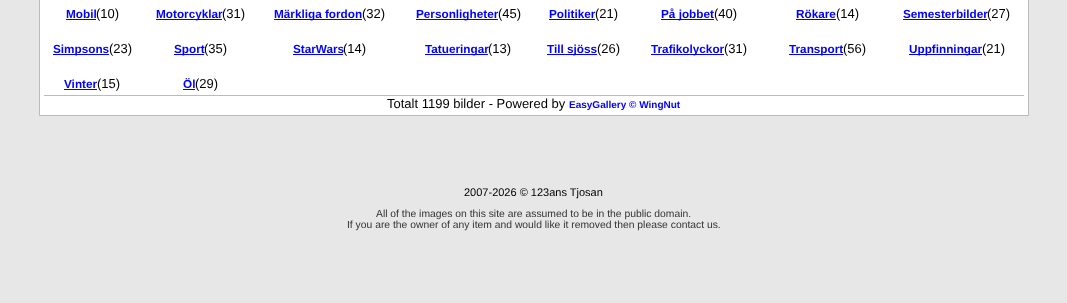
async function draw(canvas) {
	canvas.width = 1067;
	canvas.height = 303;
	const c = canvas.getContext('2d');
	c.miterLimit = 4;
	c.fontKerning = 'normal';

	c.fillStyle = '#e7e7e7';
	c.fillRect(0, 0, 1067, 303);
	c.fillStyle = '#fff';
	c.beginPath();
	c.rect(39.5, -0.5, 989, 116);
	c.fill();
	c.strokeStyle = '#bbb';
	c.stroke();
	c.font = 'bold 11.75px Liberation Sans';
	c.fillStyle = '#00f';
	c.fillText('Mobil', 66, 18);
	c.fillRect(66, 19, 30, 1);
	c.font = '13px Liberation Sans';
	c.fillStyle = '#000';
	c.fillText('(10)', 96, 18);
	c.fillStyle = '#00f';
	c.fillRect(156, 19, 66, 1);
	c.font = 'bold 11.75px Liberation Sans';
	c.fillText('Motorcyklar', 156, 18);
	c.font = '13px Liberation Sans';
	c.fillStyle = '#000';
	c.fillText('(31)', 222, 18);
	c.fillStyle = '#00f';
	c.fillRect(274, 19, 88, 1);
	c.font = 'bold 11.75px Liberation Sans';
	c.fillText('Märkliga fordon', 274, 18);
	c.font = '13px Liberation Sans';
	c.fillStyle = '#000';
	c.fillText('(32)', 362, 18);
	c.fillStyle = '#00f';
	c.fillRect(416, 19, 82, 1);
	c.font = 'bold 11.75px Liberation Sans';
	c.fillText('Personligheter', 416, 18);
	c.font = '13px Liberation Sans';
	c.fillStyle = '#000';
	c.fillText('(45)', 498, 18);
	c.font = 'bold 11.75px Liberation Sans';
	c.fillStyle = '#00f';
	c.fillText('Politiker', 549, 18);
	c.fillRect(549, 19, 46, 1);
	c.font = '13px Liberation Sans';
	c.fillStyle = '#000';
	c.fillText('(21)', 595, 18);
	c.fillStyle = '#00f';
	c.fillRect(661, 19, 53, 1);
	c.font = 'bold 11.75px Liberation Sans';
	c.fillText('På jobbet', 661, 18);
	c.font = '13px Liberation Sans';
	c.fillStyle = '#000';
	c.fillText('(40)', 714, 18);
	c.font = 'bold 11.75px Liberation Sans';
	c.fillStyle = '#00f';
	c.fillText('Rökare', 796, 18);
	c.fillRect(796, 19, 40, 1);
	c.font = '13px Liberation Sans';
	c.fillStyle = '#000';
	c.fillText('(14)', 836, 18);
	c.font = 'bold 11.75px Liberation Sans';
	c.fillStyle = '#00f';
	c.fillText('Semesterbilder', 903, 18);
	c.fillRect(903, 19, 84, 1);
	c.font = '13px Liberation Sans';
	c.fillStyle = '#000';
	c.fillText('(27)', 987, 18);
	c.fillStyle = '#00f';
	c.fillRect(53, 54, 56, 1);
	c.font = 'bold 11.75px Liberation Sans';
	c.fillText('Simpsons', 53, 53);
	c.font = '13px Liberation Sans';
	c.fillStyle = '#000';
	c.fillText('(23)', 109, 53);
	c.fillStyle = '#00f';
	c.fillRect(174, 54, 30, 1);
	c.font = 'bold 11.75px Liberation Sans';
	c.fillText('Sport', 174, 53);
	c.font = '13px Liberation Sans';
	c.fillStyle = '#000';
	c.fillText('(35)', 204, 53);
	c.font = 'bold 11.75px Liberation Sans';
	c.fillStyle = '#00f';
	c.fillText('StarWars', 293, 53);
	c.fillRect(293, 54, 50, 1);
	c.font = '13px Liberation Sans';
	c.fillStyle = '#000';
	c.fillText('(14)', 343, 53);
	c.fillStyle = '#00f';
	c.fillRect(425, 54, 63, 1);
	c.font = 'bold 11.75px Liberation Sans';
	c.fillText('Tatueringar', 425, 53);
	c.font = '13px Liberation Sans';
	c.fillStyle = '#000';
	c.fillText('(13)', 488, 53);
	c.fillStyle = '#00f';
	c.fillRect(547, 54, 50, 1);
	c.font = 'bold 11.75px Liberation Sans';
	c.fillText('Till sjöss', 547, 53);
	c.font = '13px Liberation Sans';
	c.fillStyle = '#000';
	c.fillText('(26)', 597, 53);
	c.fillStyle = '#00f';
	c.fillRect(651, 54, 73, 1);
	c.font = 'bold 11.75px Liberation Sans';
	c.fillText('Trafikolyckor', 651, 53);
	c.font = '13px Liberation Sans';
	c.fillStyle = '#000';
	c.fillText('(31)', 724, 53);
	c.fillStyle = '#00f';
	c.fillRect(789, 54, 54, 1);
	c.font = 'bold 11.75px Liberation Sans';
	c.fillText('Transport', 789, 53);
	c.font = '13px Liberation Sans';
	c.fillStyle = '#000';
	c.fillText('(56)', 843, 53);
	c.fillStyle = '#00f';
	c.fillRect(909, 54, 73, 1);
	c.font = 'bold 11.75px Liberation Sans';
	c.fillText('Uppfinningar', 909, 53);
	c.font = '13px Liberation Sans';
	c.fillStyle = '#000';
	c.fillText('(21)', 982, 53);
	c.font = 'bold 11.75px Liberation Sans';
	c.fillStyle = '#00f';
	c.fillText('Vinter', 64, 88);
	c.fillRect(64, 89, 33, 1);
	c.font = '13px Liberation Sans';
	c.fillStyle = '#000';
	c.fillText('(15)', 97, 88);
	c.font = 'bold 11.75px Liberation Sans';
	c.fillStyle = '#00f';
	c.fillText('Öl', 183, 88);
	c.fillRect(183, 89, 12, 1);
	c.font = '13px Liberation Sans';
	c.fillStyle = '#000';
	c.fillText('(29)', 195, 88);
	c.fillStyle = '#bbb';
	c.fillRect(44, 95, 980, 1);
	c.fillStyle = '#000';
	c.fillText('Totalt 1199 bilder - Powered by', 387, 108);
	c.font = 'bold 10px Liberation Sans';
	c.fillStyle = '#00f';
	c.fillText('EasyGallery © WingNut', 569, 108);
	c.font = '11px Liberation Sans';
	c.fillStyle = '#000';
	c.fillText('2007-2026 © 123ans Tjosan', 464, 196);
	c.font = '10.35px Liberation Sans';
	c.fillStyle = '#333';
	c.fillText('All of the images on this site are assumed to be in the public domain.', 376, 217);
	c.fillText('If you are the owner of any item and would like it removed then please contact us.', 347, 228);
}

draw(document.querySelector('canvas'));
